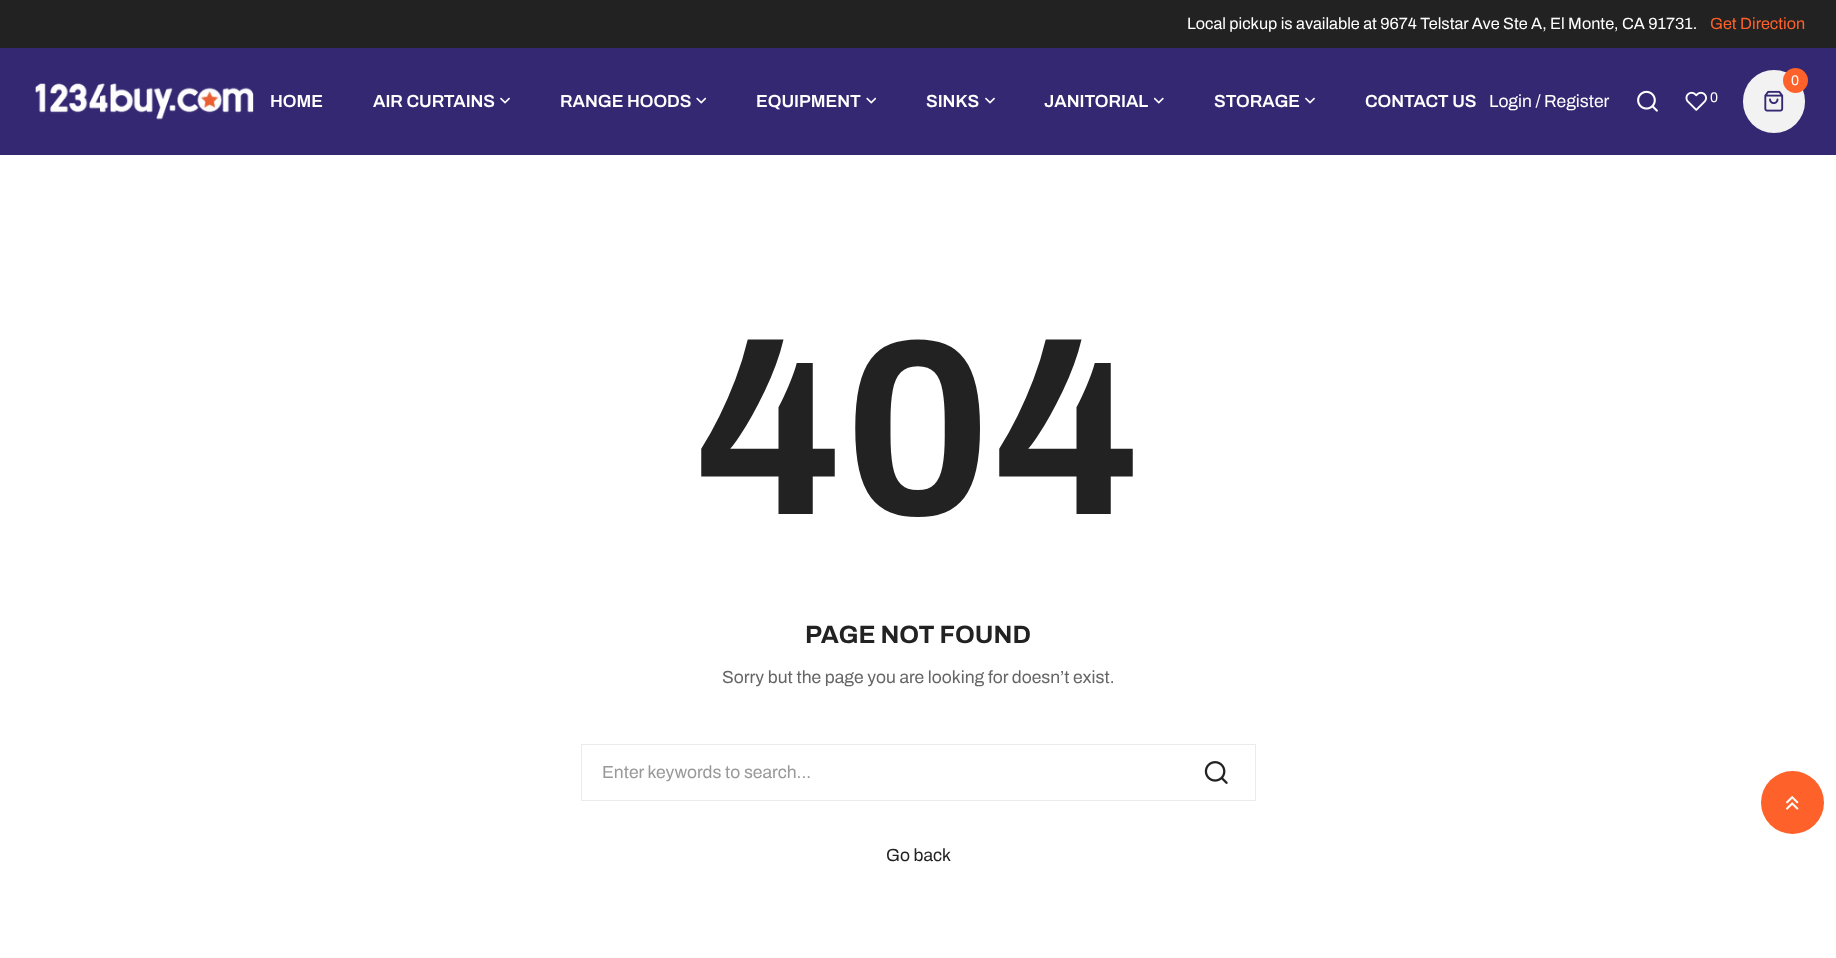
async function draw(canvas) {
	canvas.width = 1836;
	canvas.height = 958;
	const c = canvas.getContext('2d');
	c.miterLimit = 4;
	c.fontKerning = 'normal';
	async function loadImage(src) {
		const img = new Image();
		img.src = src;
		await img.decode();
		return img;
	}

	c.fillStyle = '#fff';
	c.fillRect(0, 0, 1836, 958);
	c.fillStyle = '#222';
	c.fillRect(0, 0, 1836, 48);
	c.font = '16.25px Archivo';
	c.fillStyle = '#fff';
	c.fillText('Local pickup is available at 9674 Telstar Ave Ste A, El Monte, CA 91731.', 1187, 29);
	c.fillStyle = '#fe612a';
	c.fillText('Get Direction', 1710, 29);
	c.fillStyle = '#352873';
	c.fillRect(0, 48, 1836, 107);
	c.drawImage(await loadImage('img1.png'), 35, 83, 219, 37);
	c.font = '600 17.5px Archivo';
	c.fillStyle = '#fff';
	c.fillText('HOME', 270, 107);
	c.fillText('AIR CURTAINS', 373, 107);
	c.drawImage(await loadImage('img2.png'), 500, 97, 10, 7);
	c.fillText('RANGE HOODS', 560, 107);
	c.drawImage(await loadImage('img3.png'), 696, 97, 10, 7);
	c.fillText('EQUIPMENT', 756, 107);
	c.drawImage(await loadImage('img3.png'), 866, 97, 10, 7);
	c.fillText('SINKS', 926, 107);
	c.drawImage(await loadImage('img2.png'), 985, 97, 10, 7);
	c.fillText('JANITORIAL', 1044, 107);
	c.drawImage(await loadImage('img4.png'), 1154, 97, 10, 7);
	c.fillText('STORAGE', 1214, 107);
	c.drawImage(await loadImage('img2.png'), 1305, 97, 10, 7);
	c.fillText('CONTACT US', 1365, 107);
	c.fillStyle = '#f2f2f2';
	c.beginPath();
	c.roundRect(1743, 70, 62, 63, 31);
	c.fill();
	c.drawImage(await loadImage('img5.png'), 1764, 90, 20, 22);
	c.fillStyle = '#fe612a';
	c.beginPath();
	c.arc(1795.5, 80.5, 12.5, 0, 2 * Math.PI);
	c.fill();
	c.font = '14px Archivo';
	c.fillStyle = '#fff';
	c.fillText('0', 1791, 85);
	c.font = '17.5px Archivo';
	c.fillText('Login /', 1489, 107);
	c.fillText('Register', 1544, 107);
	c.drawImage(await loadImage('img6.png'), 1637, 90, 21, 22);
	c.drawImage(await loadImage('img7.png'), 1685, 91, 22, 20);
	c.font = '14px Archivo';
	c.fillText('0', 1710, 102);
	c.font = 'bold 250px Archivo';
	c.fillStyle = '#222';
	c.fillText('404', 694, 514);
	c.font = 'bold 25px Archivo';
	c.fillText('PAGE NOT FOUND', 805, 643);
	c.font = '17.5px Archivo';
	c.fillStyle = '#666';
	c.fillText('Sorry but the page you are looking for doesn’t exist.', 722, 683);
	c.strokeStyle = '#ebebeb';
	c.strokeRect(581.5, 744.5, 674, 56);
	c.fillStyle = '#999';
	c.fillText('Enter keywords to search...', 602, 778);
	c.drawImage(await loadImage('img8.png'), 1204, 761, 24, 23);
	c.fillStyle = '#222';
	c.fillText('Go back', 886, 861);
	c.fillStyle = '#fe612a';
	c.beginPath();
	c.arc(1792.5, 802.5, 31.5, 0, 2 * Math.PI);
	c.fill();
	c.drawImage(await loadImage('img9.png'), 1786, 796, 13, 14);
}

draw(document.querySelector('canvas'));
